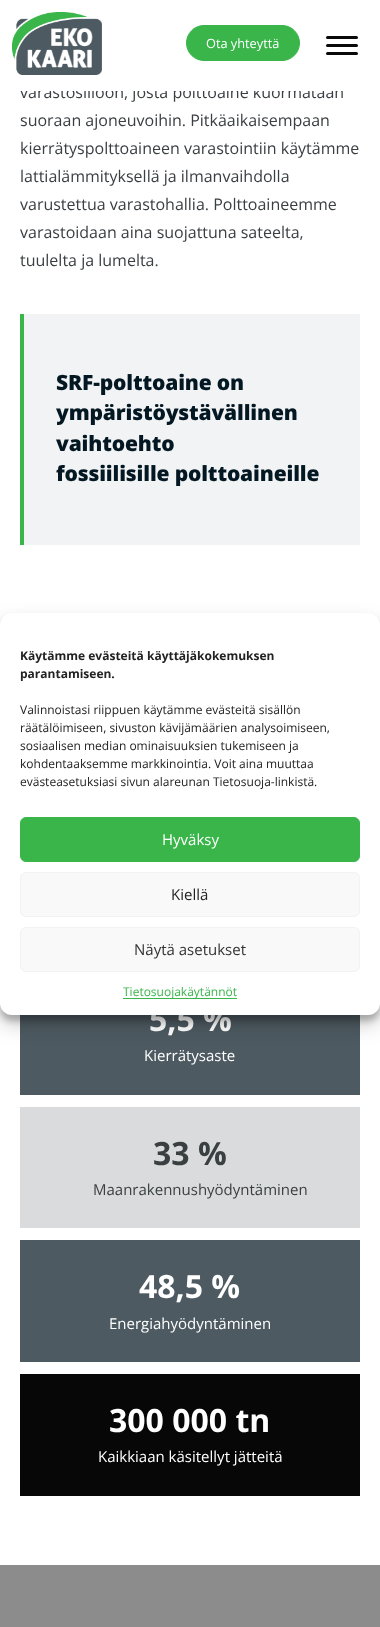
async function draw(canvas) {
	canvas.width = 380;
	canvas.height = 1627;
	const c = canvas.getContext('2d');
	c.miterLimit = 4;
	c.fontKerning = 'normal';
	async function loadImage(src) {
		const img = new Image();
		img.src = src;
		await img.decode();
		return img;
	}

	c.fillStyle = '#fff';
	c.fillRect(0, 0, 380, 1627);
	c.font = '16px Open Sans';
	c.fillStyle = '#3a3f42';
	c.fillText('varastosiiloon, josta polttoaine kuormataan', 20, 98);
	c.fillStyle = '#fff';
	c.fillRect(20, 85, 323, 6);
	c.drawImage(await loadImage('img1.png'), 12, 12, 90, 63);
	c.fillStyle = '#39b54a';
	c.beginPath();
	c.roundRect(186.5, 25.5, 113, 35, 17.5);
	c.fill();
	c.strokeStyle = '#39b54a';
	c.stroke();
	c.font = '12.75px Open Sans';
	c.fillStyle = '#fff';
	c.fillText('Ota yhteyttä', 206, 48);
	c.fillStyle = '#090909';
	c.beginPath();
	c.roundRect(326, 36, 32, 3, 1.5);
	c.fill();
	c.beginPath();
	c.roundRect(326, 44, 32, 3, 1.5);
	c.fill();
	c.beginPath();
	c.roundRect(326, 52, 32, 3, 1.5);
	c.fill();
	c.font = '16px Open Sans';
	c.fillStyle = '#3a3f42';
	for (const [text, x, y] of [
		['suoraan ajoneuvoihin. Pitkäaikaisempaan', 20, 126],
		['kierrätyspolttoaineen varastointiin käytämme', 20, 154],
		['lattialämmityksellä ja ilmanvaihdolla', 20, 182],
		['varustettua varastohallia. Polttoaineemme', 20, 210],
		['varastoidaan aina suojattuna sateelta,', 20, 238],
		['tuulelta ja lumelta.', 20, 266],
	]) {
		c.fillText(text, x, y);
	}
	c.fillStyle = '#f2f3f4';
	c.fillRect(24, 314, 336, 231);
	c.fillStyle = '#39b54a';
	c.fillRect(20, 314, 4, 231);
	c.letterSpacing = '-0.15px';
	c.font = '800 21px Open Sans';
	c.fillStyle = '#041823';
	for (const [text, x, y] of [
		['SRF-polttoaine on', 56, 390],
		['ympäristöystävällinen', 56, 420],
		['vaihtoehto', 56, 451],
		['fossiilisille polttoaineille', 56, 481],
	]) {
		c.fillText(text, x, y);
	}
	c.fillStyle = '#4d5a61';
	c.fillRect(20, 1015, 340, 80);
	c.letterSpacing = '0px';
	c.font = 'bold 32px Open Sans';
	c.fillStyle = '#fff';
	c.fillText('5,5 %', 149, 1031);
	c.font = '15px Open Sans';
	c.fillText('Kierrätysaste', 144, 1061);
	c.fillStyle = '#d9dbdd';
	c.fillRect(20, 1107, 340, 121);
	c.font = 'bold 32px Open Sans';
	c.fillStyle = '#3a3f42';
	c.fillText('33 %', 153, 1165);
	c.font = '15px Open Sans';
	c.fillText('Maanrakennushyödyntäminen', 93, 1195);
	c.fillStyle = '#4d5a61';
	c.fillRect(20, 1240, 340, 122);
	c.font = 'bold 32px Open Sans';
	c.fillStyle = '#fff';
	c.fillText('48,5 %', 139, 1298);
	c.font = '15px Open Sans';
	c.fillText('Energiahyödyntäminen', 109, 1329);
	c.fillStyle = '#070707';
	c.fillRect(20, 1374, 340, 122);
	c.font = 'bold 32px Open Sans';
	c.fillStyle = '#fff';
	c.fillText('300 000 tn', 109, 1432);
	c.font = '15px Open Sans';
	c.fillText('Kaikkiaan käsitellyt jätteitä', 98, 1462);
	c.fillStyle = '#0000003b';
	c.filter = 'blur(3px)';
	c.beginPath();
	c.roundRect(0, 619, 380, 402, 12);
	c.fill();
	c.filter = 'none';
	c.fillStyle = '#00000030';
	c.filter = 'blur(10px)';
	c.beginPath();
	c.roundRect(0, 623, 380, 402, 12);
	c.fill();
	c.filter = 'none';
	c.fillStyle = '#fff';
	c.beginPath();
	c.roundRect(0, 613, 380, 402, 12);
	c.fill();
	c.font = 'bold 12px Open Sans';
	c.fillStyle = '#222';
	c.fillText('Käytämme evästeitä käyttäjäkokemuksen', 20, 660);
	c.fillText('parantamiseen.', 20, 678);
	c.font = '12px Open Sans';
	for (const [text, x, y] of [
		['Valinnoistasi riippuen käytämme evästeitä sisällön', 20, 714],
		['räätälöimiseen, sivuston kävijämäärien analysoimiseen,', 20, 732],
		['sosiaalisen median ominaisuuksien tukemiseen ja', 20, 750],
		['kohdentaaksemme markkinointia. Voit aina muuttaa', 20, 768],
		['evästeasetuksiasi sivun alareunan Tietosuoja-linkistä.', 20, 786],
	]) {
		c.fillText(text, x, y);
	}
	c.fillStyle = '#39b54a';
	c.beginPath();
	c.roundRect(20.5, 817.5, 339, 44, 5.5);
	c.fill();
	c.stroke();
	c.font = '15px Open Sans';
	c.fillStyle = '#fff';
	c.fillText('Hyväksy', 162, 845);
	c.fillStyle = '#f9f9f9';
	c.beginPath();
	c.roundRect(20.5, 872.5, 339, 44, 5.5);
	c.fill();
	c.strokeStyle = '#f2f2f2';
	c.stroke();
	c.fillStyle = '#222';
	c.fillText('Kiellä', 171, 900);
	c.fillStyle = '#f9f9f9';
	c.beginPath();
	c.roundRect(20.5, 927.5, 339, 44, 5.5);
	c.fill();
	c.stroke();
	c.fillStyle = '#333';
	c.fillText('Näytä asetukset', 134, 955);
	c.fillStyle = '#39b54a';
	c.fillRect(123, 998, 114, 1);
	c.font = '12px Open Sans';
	c.fillText('Tietosuojakäytännöt', 123, 996);
	c.fillStyle = '#8c8c8c';
	c.fillRect(0, 1565, 380, 62);
}

draw(document.querySelector('canvas'));
